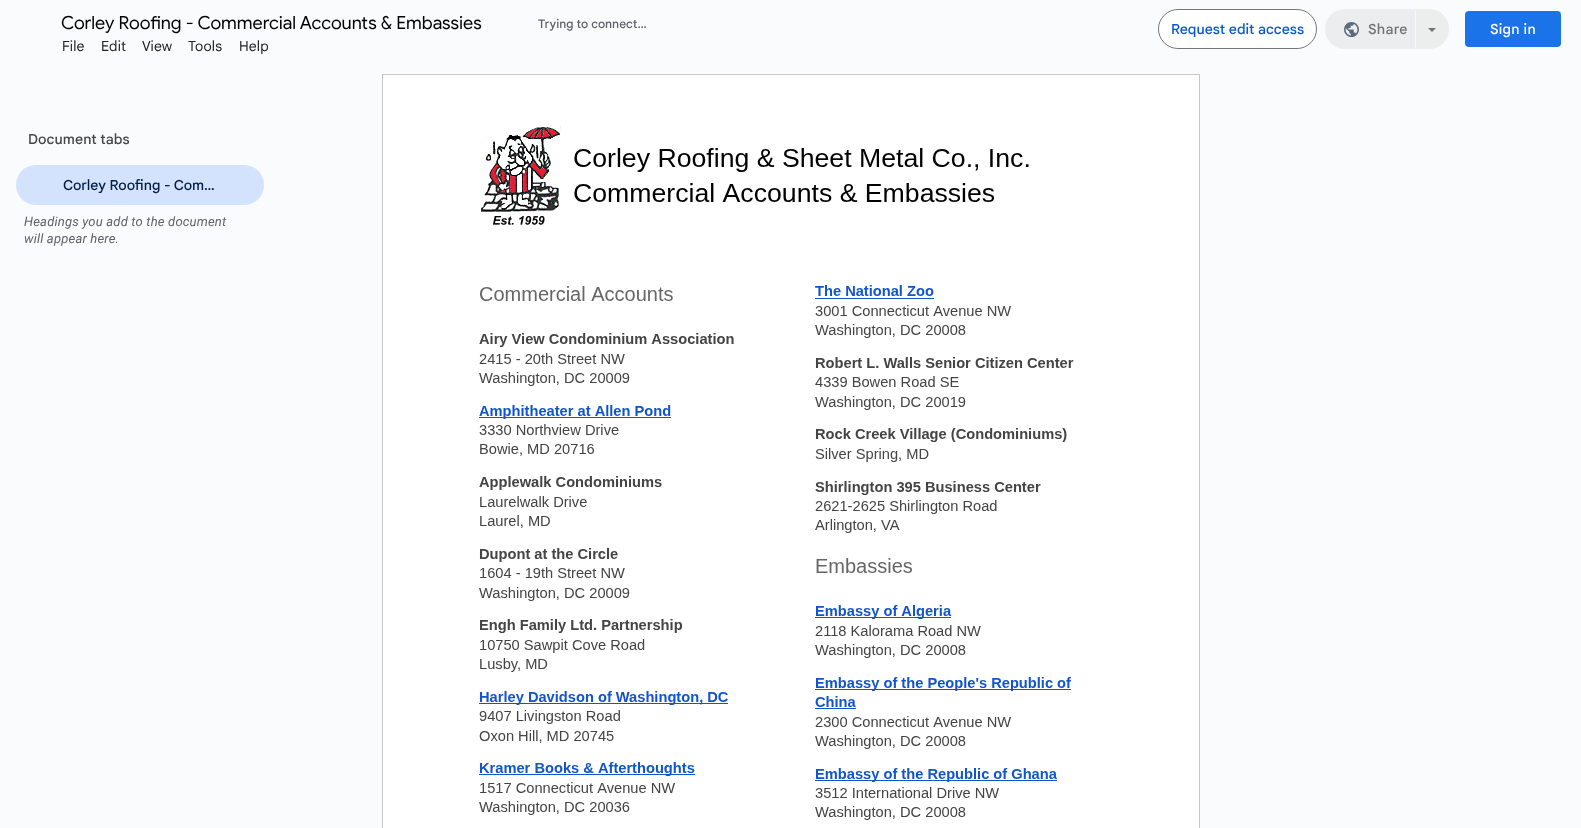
async function draw(canvas) {
	canvas.width = 1581;
	canvas.height = 828;
	const c = canvas.getContext('2d');
	c.miterLimit = 4;
	c.fontKerning = 'normal';
	async function loadImage(src) {
		const img = new Image();
		img.src = src;
		await img.decode();
		return img;
	}

	c.fillStyle = '#f9fbfd';
	c.fillRect(0, 0, 1581, 828);
	c.font = '18px "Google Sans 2"';
	c.fillStyle = '#000';
	c.fillText('Corley Roofing - Commercial Accounts & Embassies', 61, 29);
	c.font = '500 12px Google Sans';
	c.fillStyle = '#5f6368';
	c.fillText('Trying to connect…', 538, 28);
	c.fillStyle = '#fff';
	c.beginPath();
	c.roundRect(1158.5, 9.5, 158, 39, 19.5);
	c.fill();
	c.strokeStyle = '#747775';
	c.stroke();
	c.font = '500 14px Google Sans';
	c.fillStyle = '#0b57d0';
	c.fillText('Request edit access', 1171, 34);
	c.fillStyle = '#ecedee';
	c.beginPath();
	c.roundRect(1325, 9, 91, 40, [20, 0, 0, 20]);
	c.fill();
	c.drawImage(await loadImage('img1.png'), 1344, 22, 15, 15);
	c.letterSpacing = '0.25px';
	c.fillStyle = '#727373';
	c.fillText('Share', 1368, 34);
	c.fillStyle = '#e4e4e49e';
	c.beginPath();
	c.roundRect(1415, 9, 34, 40, [0, 20, 20, 0]);
	c.fill();
	c.fillStyle = '#f8f8f9';
	c.beginPath();
	c.moveTo(1416, 10);
	c.lineTo(1415, 9);
	c.lineTo(1415, 49);
	c.lineTo(1416, 48);
	c.closePath();
	c.fill();
	c.fillStyle = '#727373';
	c.beginPath();
	c.moveTo(1428, 28);
	c.lineTo(1436, 28);
	c.lineTo(1432, 32);
	c.closePath();
	c.fill();
	c.fillStyle = '#1a73e8';
	c.beginPath();
	c.roundRect(1465, 11, 96, 36, 4);
	c.fill();
	c.fillStyle = '#fff';
	c.fillText('Sign in', 1490, 34);
	c.letterSpacing = '0.2px';
	c.font = '14px Google Sans';
	c.fillStyle = '#202124';
	for (const [text, x, y] of [
		['File', 62, 51],
		['Edit', 101, 51],
		['View', 142, 51],
		['Tools', 188, 51],
		['Help', 239, 51],
	]) {
		c.fillText(text, x, y);
	}
	c.letterSpacing = '0.1px';
	c.font = '500 14px Google Sans';
	c.fillStyle = '#444746';
	c.fillText('Document tabs', 28, 144);
	c.fillStyle = '#d3e3fd';
	c.beginPath();
	c.roundRect(16, 165, 248, 40, 20);
	c.fill();
	c.letterSpacing = '0px';
	c.fillStyle = '#041e49';
	c.fillText('Corley Roofing - Com…', 63, 190);
	c.letterSpacing = '0.2px';
	c.font = 'italic 13px Roboto';
	c.fillStyle = '#5f6368';
	c.fillText('Headings you add to the document', 24, 226);
	c.fillText('will appear here.', 24, 243);
	c.strokeStyle = '#c7c7c7';
	c.strokeRect(382.5, 74.5, 817, 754);
	c.drawImage(await loadImage('img2.png'), 383, 75, 816, 753);
}

draw(document.querySelector('canvas'));
